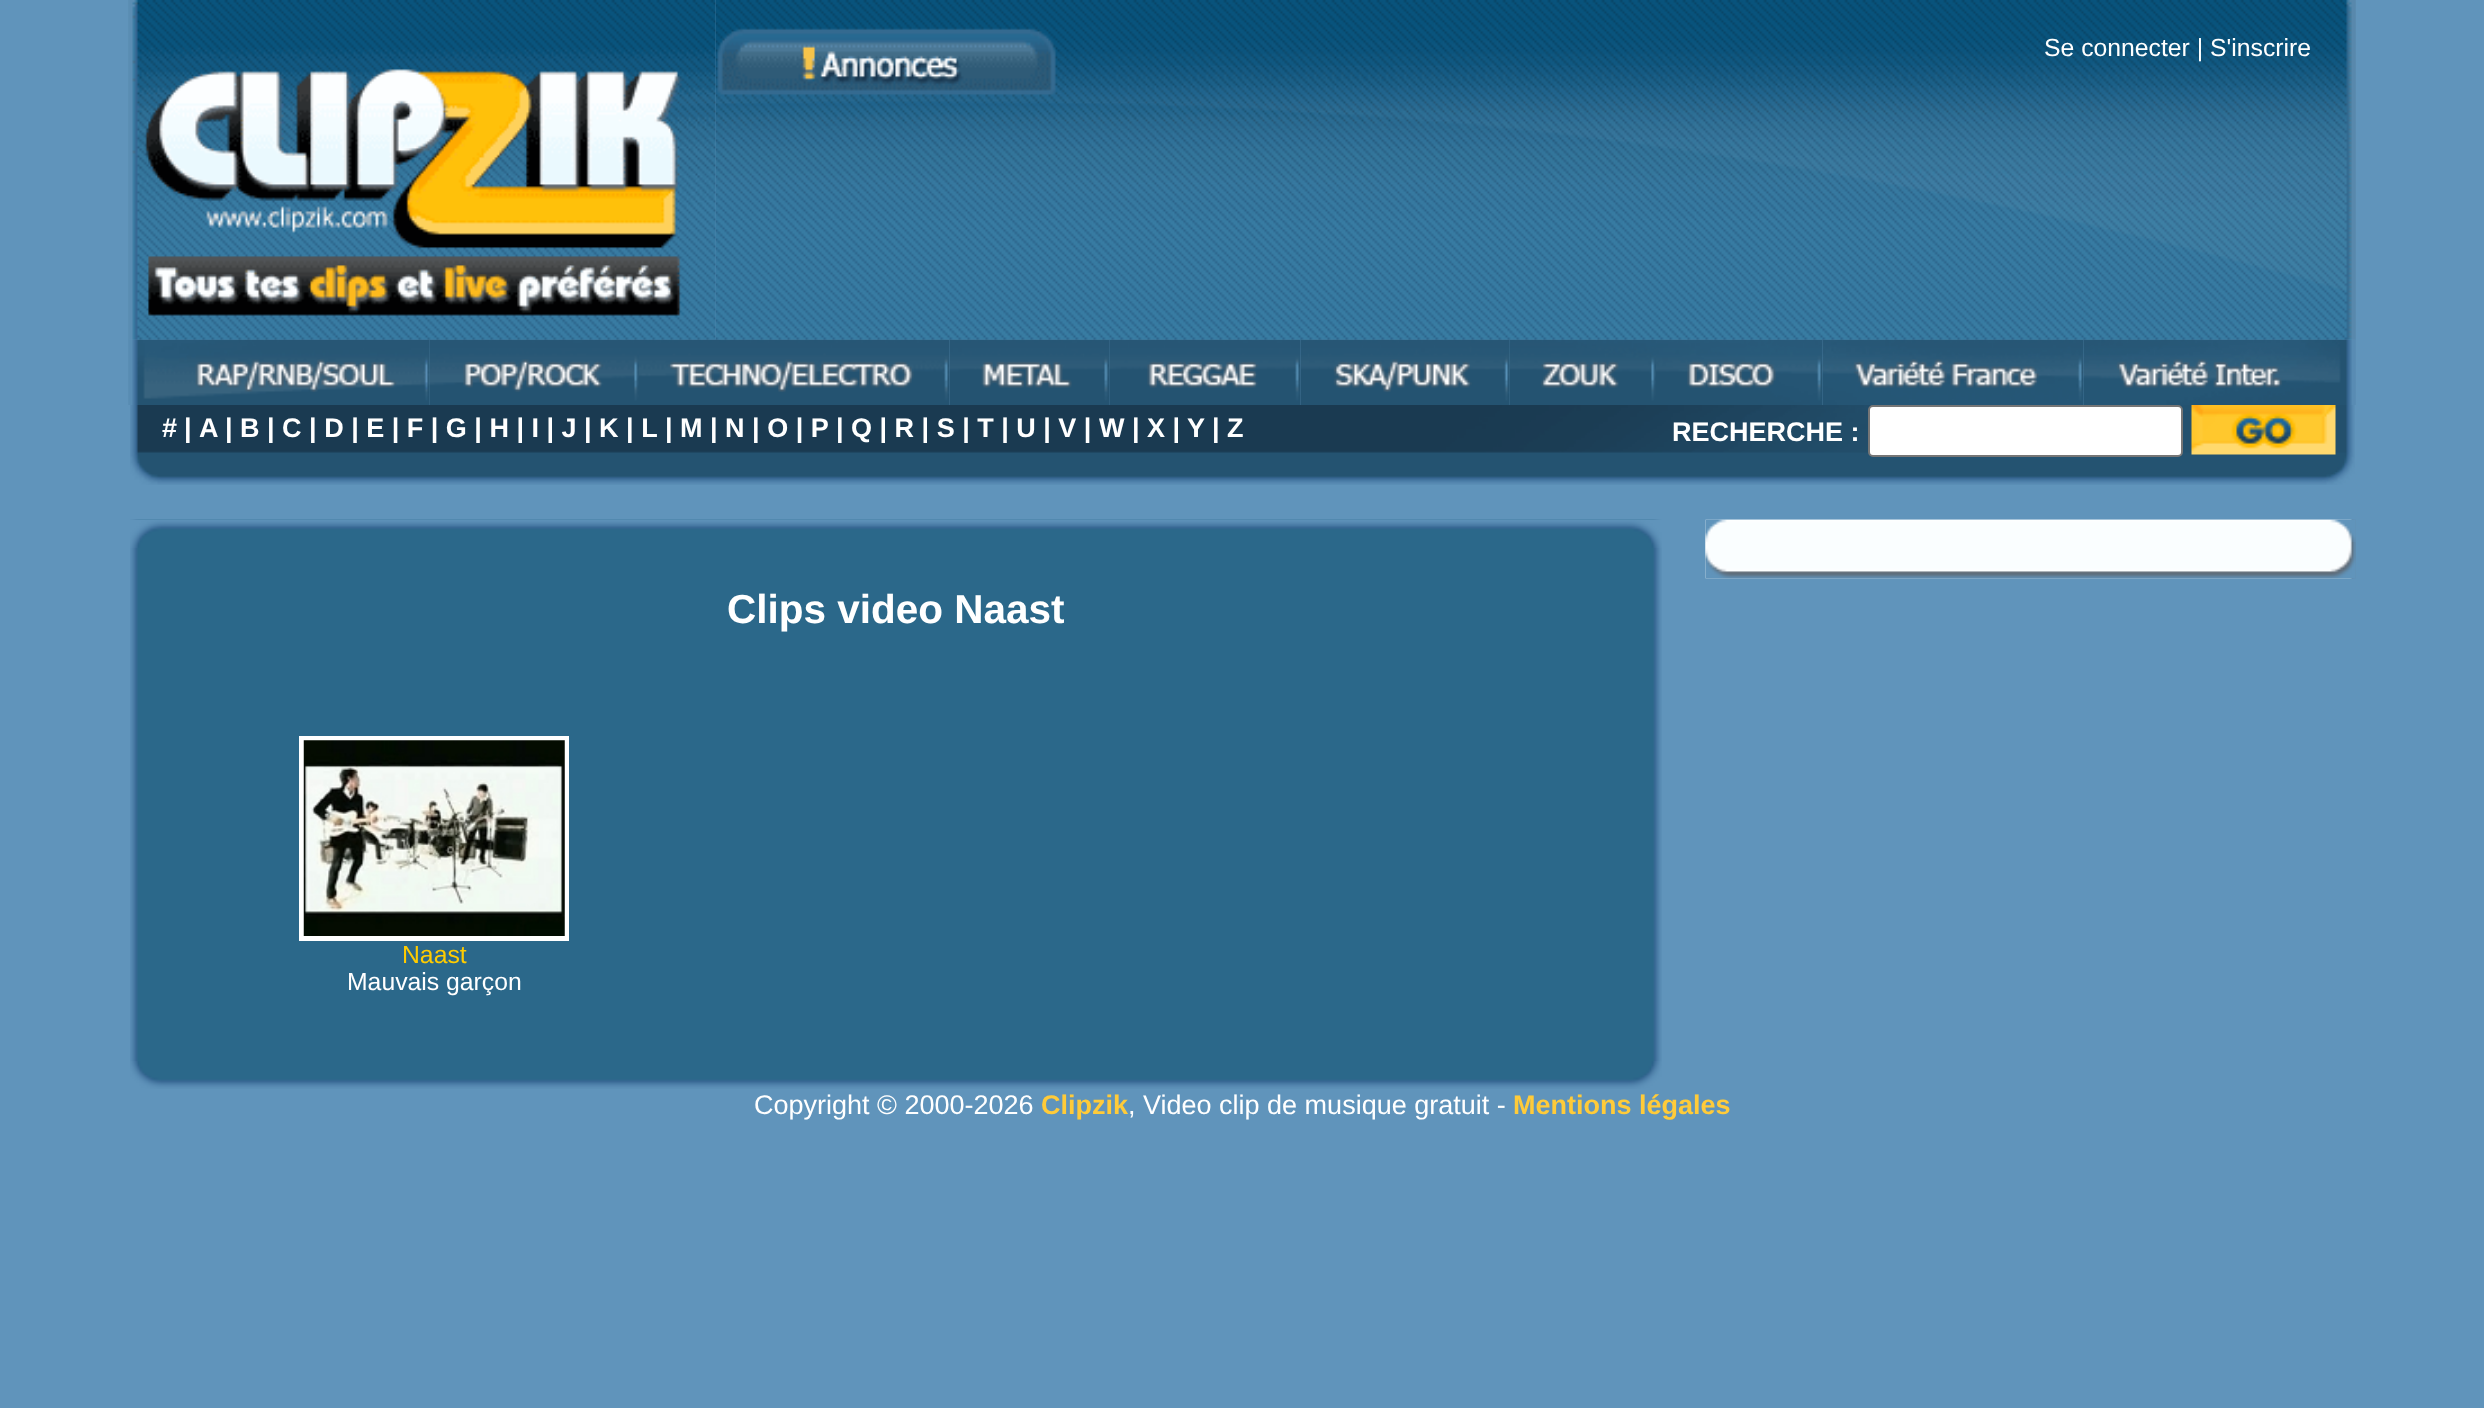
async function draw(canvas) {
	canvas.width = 2484;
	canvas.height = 1408;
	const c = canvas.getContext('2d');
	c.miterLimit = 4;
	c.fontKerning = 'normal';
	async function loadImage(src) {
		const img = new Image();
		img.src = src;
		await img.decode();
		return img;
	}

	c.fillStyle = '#6094bb';
	c.fillRect(0, 0, 2484, 1408);
	c.drawImage(await loadImage('img1.png'), 715, 0, 1641, 340);
	c.drawImage(await loadImage('img2.png'), 128, 0, 588, 340);
	c.font = '24.75px Liberation Sans';
	c.fillStyle = '#fff';
	c.fillText('Se connecter | S\'inscrire', 2044, 56);
	c.drawImage(await loadImage('img3.png'), 128, 339, 302, 66);
	c.drawImage(await loadImage('img4.png'), 429, 339, 210, 66);
	c.drawImage(await loadImage('img5.png'), 639, 339, 311, 66);
	c.drawImage(await loadImage('img6.png'), 949, 339, 161, 66);
	c.drawImage(await loadImage('img7.png'), 1109, 339, 192, 66);
	c.drawImage(await loadImage('img8.png'), 1300, 339, 210, 66);
	c.drawImage(await loadImage('img9.png'), 1509, 339, 147, 66);
	c.drawImage(await loadImage('img10.png'), 1656, 339, 167, 66);
	c.drawImage(await loadImage('img11.png'), 1822, 339, 262, 66);
	c.drawImage(await loadImage('img12.png'), 2083, 339, 273, 66);
	c.drawImage(await loadImage('img13.png'), 130, 405, 2225, 80);
	c.font = 'bold 27px Liberation Sans';
	for (const [text, x, y] of [
		['#', 162, 437],
		['|', 184, 437],
		['A', 199, 437],
		['| B | C | D | E | F | G | H | I | J | K | L', 225, 437],
		['| M | N | O | P', 665, 437],
		['| Q | R | S | T | U | V | W | X |', 836, 437],
		['Y', 1187, 437],
		['| Z', 1212, 437],
		['RECHERCHE :', 1672, 441],
	]) {
		c.fillText(text, x, y);
	}
	c.beginPath();
	c.roundRect(1869, 406, 313, 50, 4);
	c.fill();
	c.strokeStyle = '#767676';
	c.lineWidth = 2;
	c.stroke();
	c.drawImage(await loadImage('img14.png'), 2191, 405, 145, 50);
	c.drawImage(await loadImage('img15.png'), 1705, 519, 651, 60);
	c.drawImage(await loadImage('img16.png'), 1705, 519, 651, 24);
	c.drawImage(await loadImage('img17.png'), 1705, 542, 651, 37);
	c.drawImage(await loadImage('img18.png'), 130, 519, 1532, 542);
	c.drawImage(await loadImage('img19.png'), 130, 520, 1532, 28);
	c.font = 'bold 40.5px Liberation Sans';
	c.fillText('Clips video Naast', 727, 623);
	c.strokeStyle = '#fff';
	c.lineWidth = 5;
	c.strokeRect(301.5, 738.5, 265, 200);
	c.drawImage(await loadImage('img20.png'), 303, 740, 262, 196);
	c.font = '24.75px Liberation Sans';
	c.fillStyle = '#fc0';
	c.fillText('Naast', 402, 963);
	c.fillStyle = '#fff';
	c.fillText('Mauvais garçon', 347, 990);
	c.drawImage(await loadImage('img21.png'), 130, 1061, 1532, 28);
	c.font = '27px Liberation Sans';
	c.fillText('Copyright © 2000-2026', 754, 1114);
	c.font = 'bold 27px Liberation Sans';
	c.fillStyle = '#ffcb39';
	c.fillText('Clipzik', 1041, 1114);
	c.font = '27px Liberation Sans';
	c.fillStyle = '#fff';
	c.fillText(', Video clip de musique gratuit -', 1128, 1114);
	c.font = 'bold 27px Liberation Sans';
	c.fillStyle = '#ffcb39';
	c.fillText('Mentions légales', 1513, 1114);
}

draw(document.querySelector('canvas'));
